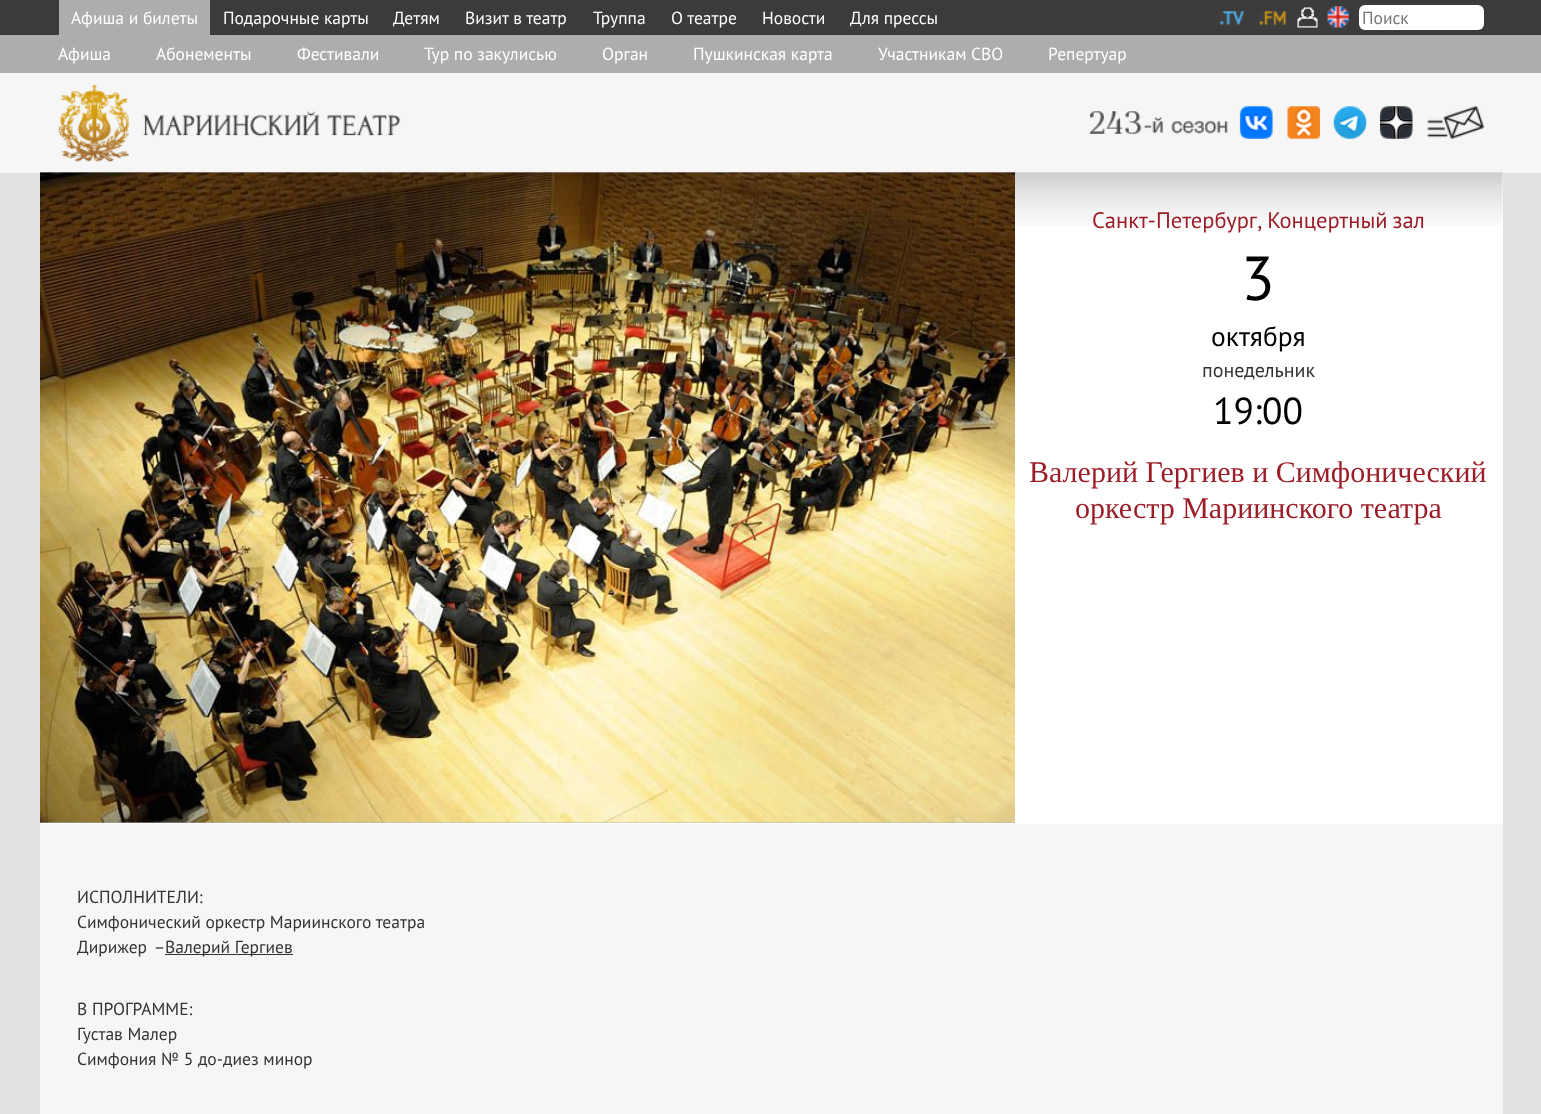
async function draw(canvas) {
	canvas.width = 1541;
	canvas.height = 1114;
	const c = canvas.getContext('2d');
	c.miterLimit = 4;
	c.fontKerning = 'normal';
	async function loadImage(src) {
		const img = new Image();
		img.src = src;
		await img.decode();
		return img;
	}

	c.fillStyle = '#e1e1e1';
	c.fillRect(0, 0, 1541, 1114);
	c.fillStyle = '#3b3b3b';
	c.fillRect(0, 0, 1541, 35);
	c.fillStyle = '#adadad';
	c.fillRect(59, 0, 151, 35);
	c.font = '17.5px PT Sans';
	c.fillStyle = '#fff';
	for (const [text, x, y] of [
		['Афиша и билеты', 71, 24],
		['Подарочные карты', 223, 24],
		['Детям', 393, 24],
		['Визит в театр', 465, 24],
		['Труппа', 593, 24],
		['О театре', 671, 24],
		['Новости', 762, 24],
		['Для прессы', 850, 24],
	]) {
		c.fillText(text, x, y);
	}
	c.drawImage(await loadImage('img1.png'), 1219, 11, 25, 15);
	c.drawImage(await loadImage('img2.png'), 1258, 11, 29, 15);
	c.drawImage(await loadImage('img3.png'), 1297, 7, 21, 21);
	c.drawImage(await loadImage('img4.png'), 1327, 6, 22, 22);
	c.beginPath();
	c.roundRect(1359, 5, 125, 25, 6);
	c.fill();
	c.fillStyle = '#757575';
	c.fillText('Поиск', 1362, 24);
	c.fillStyle = '#adadad';
	c.fillRect(0, 35, 1541, 38);
	c.fillStyle = '#fff';
	for (const [text, x, y] of [
		['Афиша', 58, 60],
		['Абонементы', 156, 60],
		['Фестивали', 297, 60],
		['Тур по закулисью', 424, 60],
		['Орган', 602, 60],
		['Пушкинская карта', 693, 60],
		['Участникам СВО', 878, 60],
		['Репертуар', 1048, 60],
	]) {
		c.fillText(text, x, y);
	}
	c.fillStyle = '#f6f6f6';
	c.fillRect(0, 73, 1541, 100);
	c.drawImage(await loadImage('img5.png'), 58, 85, 343, 77);
	c.drawImage(await loadImage('img6.png'), 1090, 111, 138, 23);
	c.drawImage(await loadImage('img7.png'), 1239, 106, 34, 33);
	c.drawImage(await loadImage('img8.png'), 1287, 106, 33, 33);
	c.drawImage(await loadImage('img9.png'), 1333, 106, 34, 33);
	c.drawImage(await loadImage('img10.png'), 1380, 106, 33, 33);
	c.drawImage(await loadImage('img11.png'), 1427, 106, 57, 33);
	c.fillStyle = '#fff';
	c.fillRect(40, 173, 1463, 651);
	c.drawImage(await loadImage('img12.png'), 40, 172, 975, 651);
	c.drawImage(await loadImage('img13.png'), 40, 172, 975, 651);
	c.drawImage(await loadImage('img14.png'), 1015, 172, 488, 53);
	c.wordSpacing = '-1px';
	c.font = '22.5px PT Sans';
	c.fillStyle = '#9c1d27';
	c.fillText('Санкт-Петербург, Концертный зал', 1092, 228);
	c.wordSpacing = '0px';
	c.font = '62px PT Sans';
	c.fillStyle = '#000';
	c.fillText('3', 1241, 300);
	c.font = '27.5px PT Sans';
	c.fillText('октября', 1211, 346);
	c.font = '20px PT Sans';
	c.fillStyle = '#333';
	c.fillText('понедельник', 1202, 377);
	c.font = '37.5px PT Sans';
	c.fillStyle = '#000';
	c.fillText('19:00', 1213, 424);
	c.font = '30px Liberation Serif';
	c.fillStyle = '#9c1d27';
	c.fillText('Валерий Гергиев и Симфонический', 1029, 482);
	c.fillText('оркестр Мариинского театра', 1075, 518);
	c.fillStyle = '#f6f6f6';
	c.fillRect(40, 824, 1463, 290);
	c.font = '17.5px PT Sans';
	c.fillStyle = '#333';
	c.fillText('ИСПОЛНИТЕЛИ:', 77, 903);
	c.fillText('Симфонический оркестр Мариинского театра', 77, 928);
	c.wordSpacing = '2px';
	c.fillText('Дирижер –', 77, 953);
	c.fillRect(165, 954, 128, 1);
	c.wordSpacing = '0px';
	for (const [text, x, y] of [
		['Валерий Гергиев', 165, 953],
		['В ПРОГРАММЕ:', 77, 1015],
		['Густав Малер', 77, 1040],
		['Симфония № 5 до-диез минор', 77, 1065],
	]) {
		c.fillText(text, x, y);
	}
}

draw(document.querySelector('canvas'));
